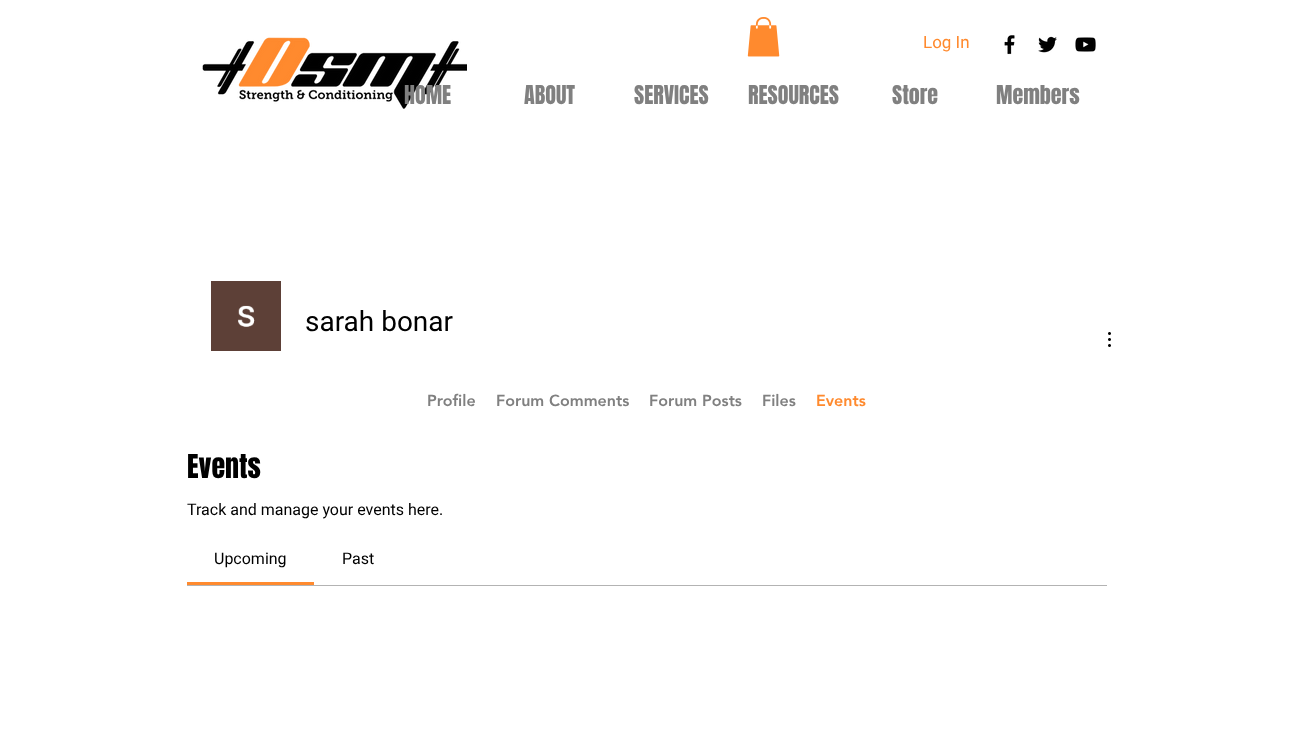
async function draw(canvas) {
	canvas.width = 1293;
	canvas.height = 733;
	const c = canvas.getContext('2d');
	c.miterLimit = 4;
	c.fontKerning = 'normal';
	async function loadImage(src) {
		const img = new Image();
		img.src = src;
		await img.decode();
		return img;
	}

	c.fillStyle = '#fff';
	c.fillRect(0, 0, 1293, 733);
	c.drawImage(await loadImage('img1.png'), 202, 37, 265, 72);
	c.drawImage(await loadImage('img2.png'), 747, 17, 33, 40);
	c.font = '17px Roboto';
	c.fillStyle = '#ff8a2e';
	c.fillText('Log In', 923, 48);
	c.drawImage(await loadImage('img3.png'), 1004, 35, 11, 20);
	c.drawImage(await loadImage('img4.png'), 1038, 36, 19, 17);
	c.drawImage(await loadImage('img5.png'), 1075, 37, 21, 15);
	c.font = '22px Anton';
	c.fillStyle = '#808080';
	for (const [text, x, y] of [
		['HOME', 404, 104],
		['ABOUT', 524, 104],
		['SERVICES', 634, 104],
		['RESOURCES', 748, 104],
		['Store', 892, 104],
		['Members', 996, 104],
	]) {
		c.fillText(text, x, y);
	}
	c.drawImage(await loadImage('img6.png'), 211, 281, 70, 70);
	c.font = '28px Roboto';
	c.fillStyle = '#000';
	c.fillText('sarah bonar', 305, 331);
	c.drawImage(await loadImage('img7.png'), 1108, 332, 3, 15);
	c.font = '900 16px "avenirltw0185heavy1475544"';
	c.fillStyle = '#808080';
	for (const [text, x, y] of [
		['Profile', 427, 406],
		['Forum Comments', 496, 406],
		['Forum Posts', 649, 406],
		['Files', 762, 406],
	]) {
		c.fillText(text, x, y);
	}
	c.fillStyle = '#ff8a2e';
	c.fillText('Events', 816, 406);
	c.font = '28px Anton';
	c.fillStyle = '#000';
	c.fillText('Events', 187, 478);
	c.font = '16px Roboto';
	c.fillText('Track and manage your events here.', 187, 515);
	c.fillStyle = '#ff8a2e';
	c.fillRect(187, 582, 127, 3);
	c.fillStyle = '#000';
	c.fillText('Upcoming', 214, 564);
	c.fillText('Past', 342, 564);
	c.fillStyle = '#b3b3b3';
	c.fillRect(187, 585, 920, 1);
}

draw(document.querySelector('canvas'));
